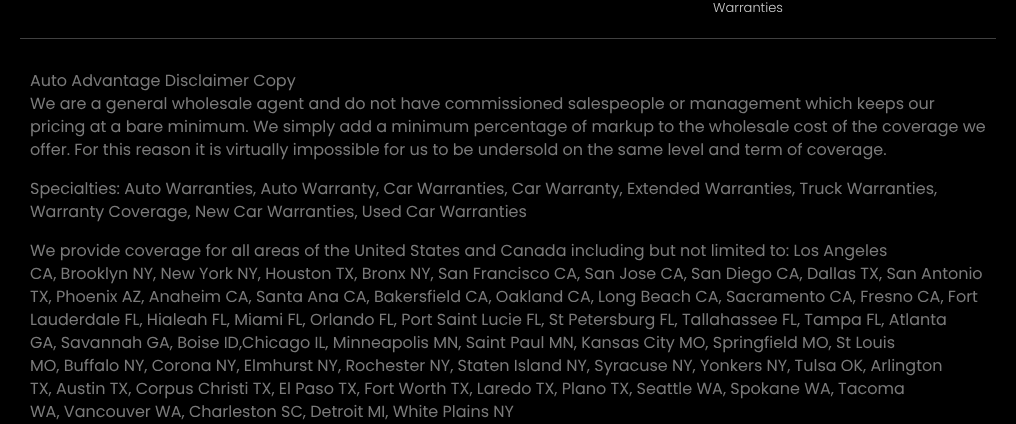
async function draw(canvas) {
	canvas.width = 1016;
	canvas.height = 424;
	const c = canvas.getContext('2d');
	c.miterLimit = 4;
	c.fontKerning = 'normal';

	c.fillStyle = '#000';
	c.fillRect(0, 0, 1016, 424);
	c.font = '300 13px Poppins';
	c.fillStyle = '#c9c9c9';
	c.fillText('Warranties', 713, 12);
	c.fillStyle = '#404040';
	c.fillRect(20, 38, 976, 1);
	c.font = '16px Poppins';
	c.fillStyle = '#7a7a7a';
	for (const [text, x, y] of [
		['Auto Advantage Disclaimer Copy', 30, 86],
		['We are a general wholesale agent and do not have commissioned salespeople or management which keeps our', 30, 109],
		['pricing at a bare minimum. We simply add a minimum percentage of markup to the wholesale cost of the coverage we', 30, 132],
		['offer. For this reason it is virtually impossible for us to be undersold on the same level and term of coverage.', 30, 155],
		['Specialties: Auto Warranties, Auto Warranty, Car Warranties, Car Warranty, Extended Warranties, Truck Warranties,', 30, 194],
		['Warranty Coverage, New Car Warranties, Used Car Warranties', 30, 217],
		['We provide coverage for all areas of the United States and Canada including but not limited to: Los Angeles', 30, 256],
		['CA, Brooklyn NY, New York NY, Houston TX, Bronx NY, San Francisco CA, San Jose CA, San Diego CA, Dallas TX, San Antonio', 30, 279],
		['TX, Phoenix AZ, Anaheim CA, Santa Ana CA, Bakersfield CA, Oakland CA, Long Beach CA, Sacramento CA, Fresno CA, Fort', 30, 302],
		['Lauderdale FL, Hialeah FL, Miami FL, Orlando FL, Port Saint Lucie FL, St Petersburg FL, Tallahassee FL, Tampa FL, Atlanta', 30, 325],
		['GA, Savannah GA, Boise ID,Chicago IL, Minneapolis MN, Saint Paul MN, Kansas City MO, Springfield MO, St Louis', 30, 348],
		['MO, Buffalo NY, Corona NY, Elmhurst NY, Rochester NY, Staten Island NY, Syracuse NY, Yonkers NY, Tulsa OK, Arlington', 30, 371],
		['TX, Austin TX, Corpus Christi TX, El Paso TX, Fort Worth TX, Laredo TX, Plano TX, Seattle WA, Spokane WA, Tacoma', 30, 394],
		['WA, Vancouver WA, Charleston SC, Detroit MI, White Plains NY', 30, 417],
	]) {
		c.fillText(text, x, y);
	}
}

draw(document.querySelector('canvas'));
